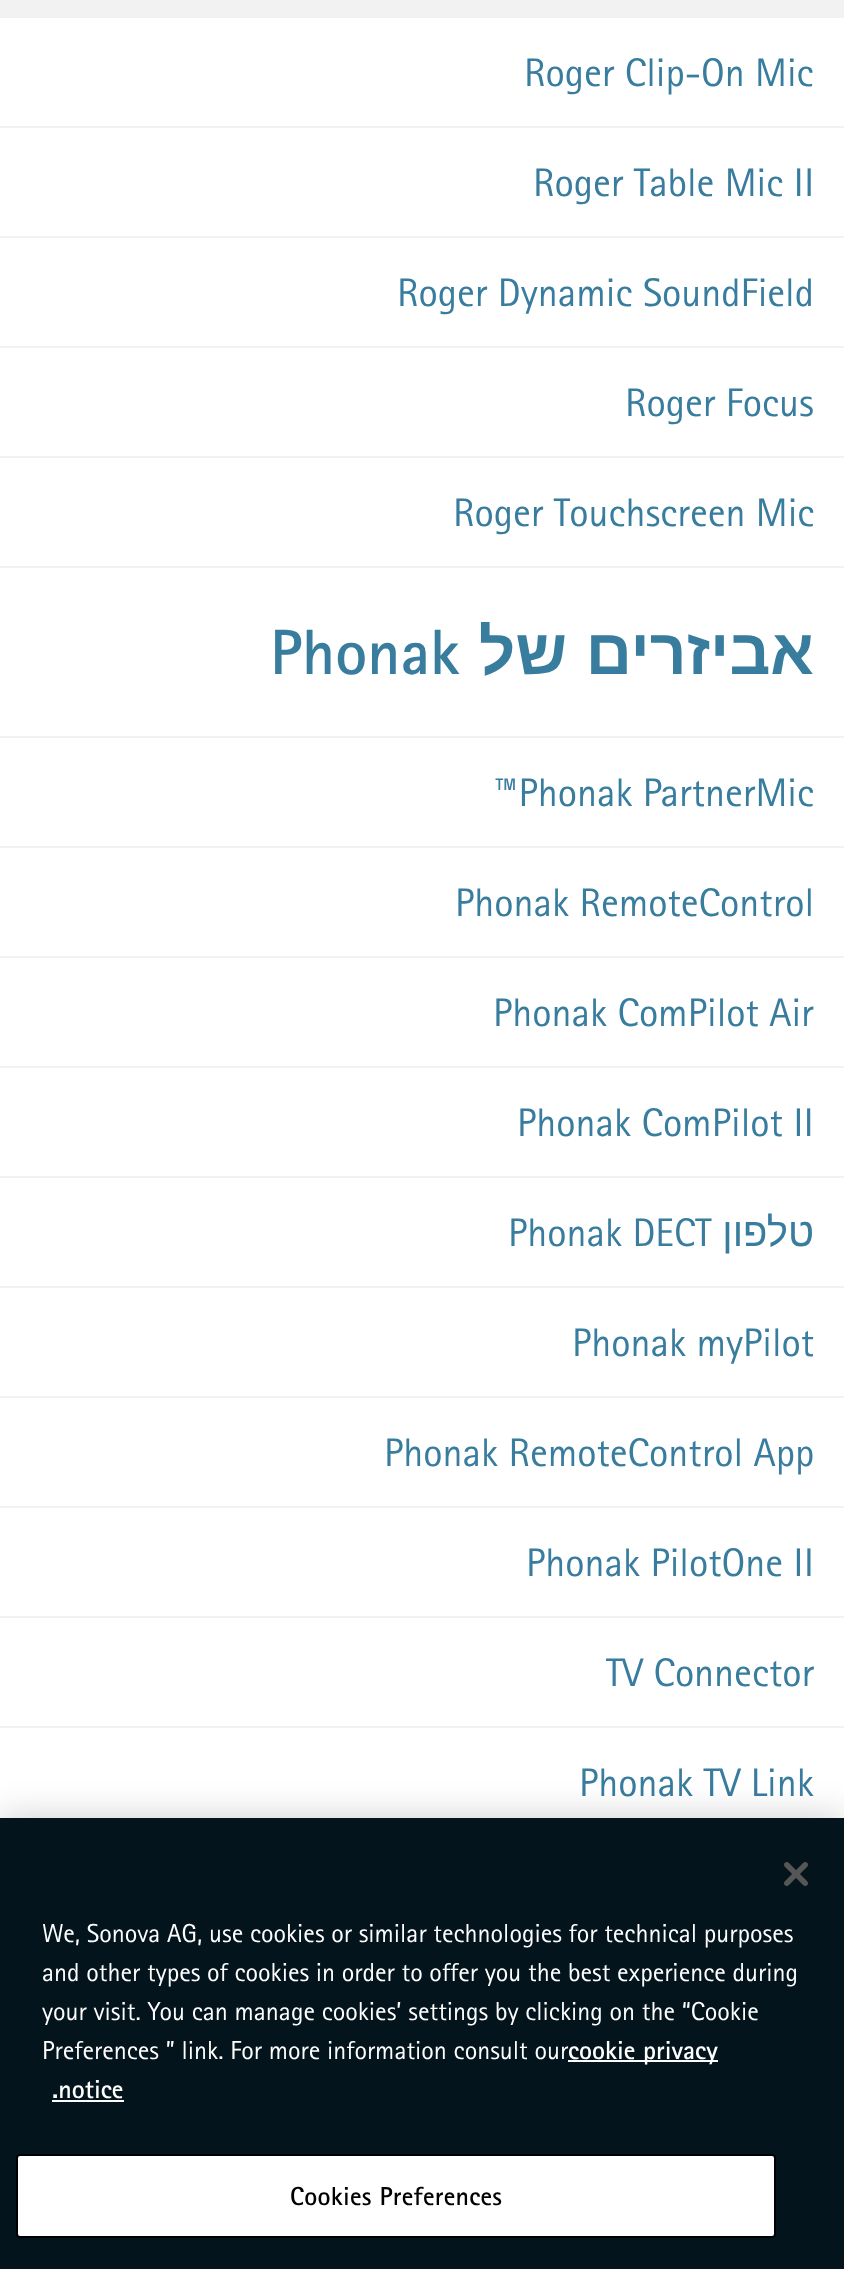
async function draw(canvas) {
	canvas.width = 844;
	canvas.height = 2269;
	const c = canvas.getContext('2d');
	c.miterLimit = 4;
	c.fontKerning = 'normal';
	async function loadImage(src) {
		const img = new Image();
		img.src = src;
		await img.decode();
		return img;
	}

	c.fillStyle = '#fff';
	c.fillRect(0, 0, 844, 2269);
	c.fillStyle = '#f2f2f2';
	c.fillRect(0, 0, 844, 18);
	c.fillRect(0, 126, 844, 2);
	c.font = '40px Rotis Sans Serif';
	c.fillStyle = '#387c9e';
	c.fillText('Roger Clip-On Mic', 524, 86);
	c.fillStyle = '#f2f2f2';
	c.fillRect(0, 236, 844, 2);
	c.fillStyle = '#387c9e';
	c.fillText('Roger Table Mic II', 533, 196);
	c.fillStyle = '#f2f2f2';
	c.fillRect(0, 346, 844, 2);
	c.fillStyle = '#387c9e';
	c.fillText('Roger Dynamic SoundField', 397, 306);
	c.fillStyle = '#f2f2f2';
	c.fillRect(0, 456, 844, 2);
	c.fillStyle = '#387c9e';
	c.fillText('Roger Focus', 625, 416);
	c.fillStyle = '#f2f2f2';
	c.fillRect(0, 566, 844, 2);
	c.fillStyle = '#387c9e';
	c.fillText('Roger Touchscreen Mic', 453, 526);
	c.font = 'bold 64px Rotis Sans Serif';
	c.fillText('Phonak', 270, 674);
	c.wordSpacing = '1px';
	c.direction = 'rtl';
	c.font = 'bold 64px Liberation Sans';
	c.fillText('אביזרים של', 814, 674);
	c.fillStyle = '#f2f2f2';
	c.fillRect(0, 736, 844, 2);
	c.fillRect(0, 846, 844, 2);
	c.wordSpacing = '0px';
	c.direction = 'ltr';
	c.font = '40px Rotis Sans Serif';
	c.fillStyle = '#387c9e';
	c.fillText('™Phonak PartnerMic', 494, 806);
	c.fillStyle = '#f2f2f2';
	c.fillRect(0, 956, 844, 2);
	c.fillStyle = '#387c9e';
	c.fillText('Phonak RemoteControl', 455, 916);
	c.fillStyle = '#f2f2f2';
	c.fillRect(0, 1066, 844, 2);
	c.fillStyle = '#387c9e';
	c.fillText('Phonak ComPilot Air', 493, 1026);
	c.fillStyle = '#f2f2f2';
	c.fillRect(0, 1176, 844, 2);
	c.fillStyle = '#387c9e';
	c.fillText('Phonak ComPilot II', 517, 1136);
	c.fillStyle = '#f2f2f2';
	c.fillRect(0, 1286, 844, 2);
	c.fillStyle = '#387c9e';
	c.fillText('Phonak DECT', 508, 1246);
	c.direction = 'rtl';
	c.font = '40px Liberation Sans';
	c.fillText('טלפון', 814, 1246);
	c.fillStyle = '#f2f2f2';
	c.fillRect(0, 1396, 844, 2);
	c.direction = 'ltr';
	c.font = '40px Rotis Sans Serif';
	c.fillStyle = '#387c9e';
	c.fillText('Phonak myPilot', 572, 1356);
	c.fillStyle = '#f2f2f2';
	c.fillRect(0, 1506, 844, 2);
	c.fillStyle = '#387c9e';
	c.fillText('Phonak RemoteControl App', 384, 1466);
	c.fillStyle = '#f2f2f2';
	c.fillRect(0, 1616, 844, 2);
	c.fillStyle = '#387c9e';
	c.fillText('Phonak PilotOne II', 526, 1576);
	c.fillStyle = '#f2f2f2';
	c.fillRect(0, 1726, 844, 2);
	c.fillStyle = '#387c9e';
	c.fillText('TV Connector', 606, 1686);
	c.fillText('Phonak TV Link', 579, 1796);
	c.fillStyle = '#00000033';
	c.filter = 'blur(18px)';
	c.beginPath();
	c.rect(0, 1818, 844, 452);
	c.fill();
	c.filter = 'none';
	c.fillStyle = '#03141d';
	c.fillRect(0, 1818, 844, 451);
	c.drawImage(await loadImage('img1.png'), 784, 1862, 24, 24);
	c.font = '26px Rotis Sans Serif';
	c.fillStyle = '#fff';
	for (const [text, x, y] of [
		['We, Sonova AG, use cookies or similar technologies for technical purposes', 42, 1942],
		['and other types of cookies in order to offer you the best experience during', 42, 1981],
		['your visit. You can manage cookies’ settings by clicking on the “Cookie', 42, 2020],
		['Preferences ” link. For more information consult our', 42, 2059],
	]) {
		c.fillText(text, x, y);
	}
	c.fillRect(568, 2060, 150, 2);
	c.font = 'bold 26px Rotis Sans Serif';
	c.fillText('cookie privacy', 568, 2059);
	c.fillText('.notice', 52, 2098);
	c.fillRect(52, 2100, 72, 2);
	c.beginPath();
	c.roundRect(17, 2155, 758, 82, 3);
	c.fill();
	c.strokeStyle = '#000';
	c.lineWidth = 2;
	c.stroke();
	c.letterSpacing = '0.25px';
	c.fillStyle = '#000';
	c.fillText('Cookies Preferences', 290, 2205);
}

draw(document.querySelector('canvas'));
